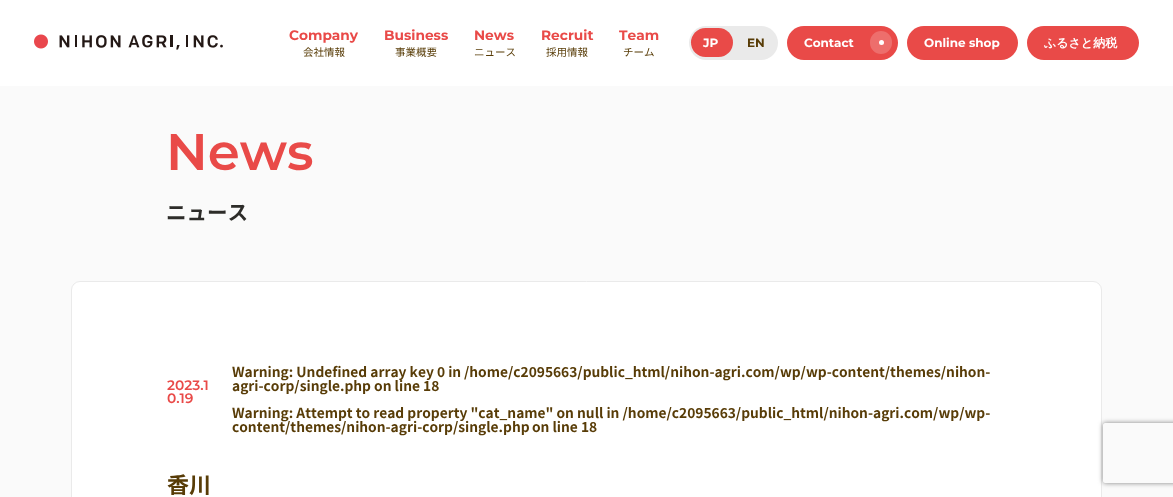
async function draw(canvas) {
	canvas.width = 1173;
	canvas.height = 497;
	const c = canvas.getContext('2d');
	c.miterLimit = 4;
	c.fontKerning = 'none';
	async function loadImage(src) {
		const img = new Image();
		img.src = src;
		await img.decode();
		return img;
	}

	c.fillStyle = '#fafafa';
	c.fillRect(0, 0, 1173, 497);
	c.fillStyle = '#fff';
	c.fillRect(0, 0, 1173, 86);
	c.drawImage(await loadImage('img1.png'), 34, 34, 189, 16);
	c.font = 'bold 13.75px Montserrat';
	c.fillStyle = '#e94a48';
	c.fillText('Company', 289, 40);
	c.font = '10.5px Noto Sans JP';
	c.fillStyle = '#583c07';
	c.fillText('会社情報', 303, 56);
	c.font = 'bold 13.75px Montserrat';
	c.fillStyle = '#e94a48';
	c.fillText('Business', 384, 40);
	c.font = '10.5px Noto Sans JP';
	c.fillStyle = '#583c07';
	c.fillText('事業概要', 395, 56);
	c.font = 'bold 13.75px Montserrat';
	c.fillStyle = '#e94a48';
	c.fillText('News', 474, 40);
	c.font = '10.5px Noto Sans JP';
	c.fillStyle = '#583c07';
	c.fillText('ニュース', 474, 56);
	c.font = 'bold 13.75px Montserrat';
	c.fillStyle = '#e94a48';
	c.fillText('Recruit', 541, 40);
	c.font = '10.5px Noto Sans JP';
	c.fillStyle = '#583c07';
	c.fillText('採用情報', 546, 56);
	c.font = 'bold 13.75px Montserrat';
	c.fillStyle = '#e94a48';
	c.fillText('Team', 619, 40);
	c.font = '10.5px Noto Sans JP';
	c.fillStyle = '#583c07';
	c.fillText('チーム', 623, 56);
	c.fillStyle = '#eaeaea';
	c.beginPath();
	c.roundRect(689, 26, 89, 34, 17);
	c.fill();
	c.fillStyle = '#e94a48';
	c.beginPath();
	c.roundRect(691, 28, 42, 29, 14.5);
	c.fill();
	c.font = 'bold 12px Montserrat';
	c.fillStyle = '#fff';
	c.fillText('JP', 703, 47);
	c.fillStyle = '#583c07';
	c.fillText('EN', 747, 47);
	c.fillStyle = '#e94a48';
	c.beginPath();
	c.roundRect(787, 26, 111, 34, 17);
	c.fill();
	c.fillStyle = '#fff';
	c.fillText('Contact', 804, 47);
	c.beginPath();
	c.arc(881.5, 42.5, 2.5, 0, 2 * Math.PI);
	c.fill();
	c.fillStyle = '#ffffff33';
	c.beginPath();
	c.roundRect(870, 31, 22, 23, 11);
	c.fill();
	c.fillStyle = '#e94a48';
	c.beginPath();
	c.roundRect(907, 26, 111, 34, 17);
	c.fill();
	c.fillStyle = '#fff';
	c.fillText('Online shop', 924, 47);
	c.fillStyle = '#e94a48';
	c.beginPath();
	c.roundRect(1027, 26, 112, 34, 17);
	c.fill();
	c.font = 'bold 12px WenQuanYi Zen Hei';
	c.fillStyle = '#fff';
	c.fillText('ふるさと納税', 1044, 47);
	c.font = '600 51.5px Montserrat';
	c.fillStyle = '#e94a48';
	c.fillText('News', 166, 170);
	c.font = 'bold 20.5px Noto Sans JP';
	c.fillStyle = '#2d2c29';
	c.fillText('ニュース', 166, 220);
	c.fillStyle = '#fff';
	c.beginPath();
	c.roundRect(71.5, 281.5, 1030, 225, 8.5);
	c.fill();
	c.strokeStyle = '#eaeaea';
	c.stroke();
	c.font = '600 13.75px Montserrat';
	c.fillStyle = '#e94a48';
	c.fillText('2023.1', 167, 390);
	c.fillText('0.19', 167, 403);
	c.font = 'bold 13.75px Noto Sans JP';
	c.fillStyle = '#583c07';
	for (const [text, x, y] of [
		['Warning: Undefined array key 0 in', 232, 377],
		['/home/c2095663/public_html/nihon-agri.com/wp/wp-content/themes/nihon-', 464, 377],
		['agri-corp/single.php on line 18', 232, 391],
		['Warning: Attempt to read property "cat_name" on null in /home/c2095663/public_html/nihon-agri.com/wp/wp-', 232, 418],
		['content/themes/nihon-agri-corp/single.php', 232, 432],
		['on line 18', 532, 432],
	]) {
		c.fillText(text, x, y);
	}
	c.font = 'bold 22px Noto Sans JP';
	c.fillText('香川', 167, 493);
	c.save();
	c.beginPath();
	c.moveTo(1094, 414);
	c.lineTo(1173, 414);
	c.lineTo(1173, 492);
	c.lineTo(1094, 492);
	c.closePath();
	c.moveTo(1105, 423);
	c.lineTo(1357, 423);
	c.bezierCurveTo(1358, 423, 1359, 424, 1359, 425);
	c.lineTo(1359, 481);
	c.bezierCurveTo(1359, 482, 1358, 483, 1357, 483);
	c.lineTo(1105, 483);
	c.bezierCurveTo(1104, 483, 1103, 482, 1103, 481);
	c.lineTo(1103, 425);
	c.bezierCurveTo(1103, 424, 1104, 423, 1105, 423);
	c.closePath();
	c.clip('evenodd');
	c.fillStyle = '#808080';
	c.filter = 'blur(2.5px)';
	c.beginPath();
	c.roundRect(1103, 423, 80, 60, 2);
	c.fill();
	c.filter = 'none';
	c.restore();
}

draw(document.querySelector('canvas'));
